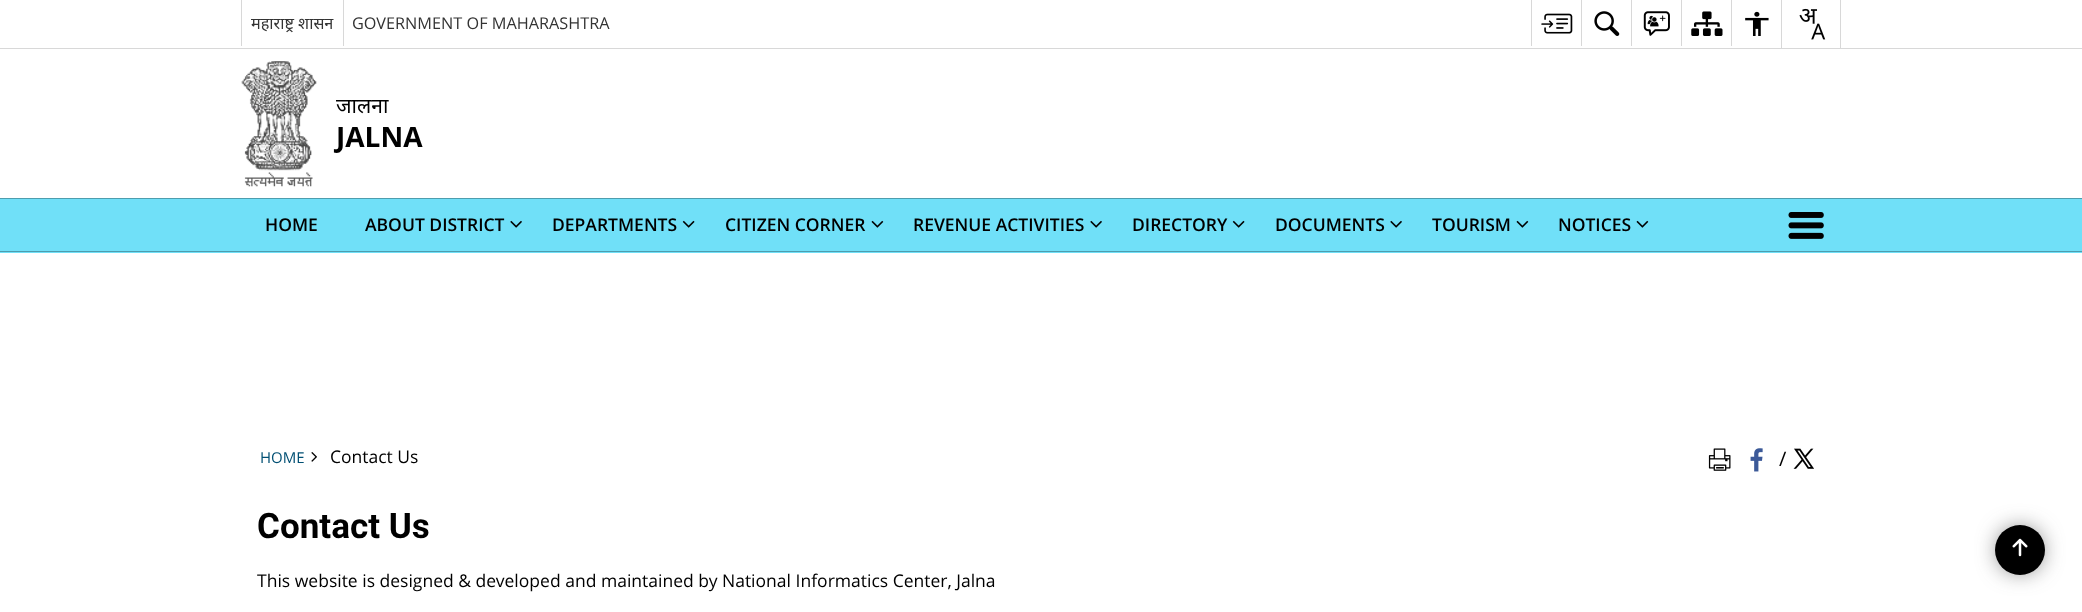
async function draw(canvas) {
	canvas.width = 2082;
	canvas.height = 612;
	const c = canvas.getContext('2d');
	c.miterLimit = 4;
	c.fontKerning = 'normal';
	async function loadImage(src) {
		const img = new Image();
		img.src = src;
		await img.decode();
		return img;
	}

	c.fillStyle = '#fff';
	c.fillRect(0, 0, 2082, 612);
	c.fillStyle = '#d8d8d8';
	c.fillRect(0, 48, 2082, 1);
	c.fillRect(241, 0, 1, 46);
	c.font = '16.25px Noto Sans';
	c.fillStyle = '#333';
	c.fillText('महाराष्ट्र शासन', 251, 29);
	c.fillStyle = '#d8d8d8';
	c.fillRect(343, 0, 1, 46);
	c.font = '16.25px Open Sans';
	c.fillStyle = '#333';
	c.fillText('GOVERNMENT OF MAHARASHTRA', 352, 29);
	c.fillStyle = '#d8d8d8';
	c.fillRect(1531, 0, 1, 46);
	c.drawImage(await loadImage('img1.png'), 1541, 13, 32, 21);
	c.fillRect(1581, 0, 1, 46);
	c.drawImage(await loadImage('img2.png'), 1594, 11, 26, 25);
	c.fillRect(1631, 0, 1, 46);
	c.drawImage(await loadImage('img3.png'), 1643, 11, 27, 25);
	c.fillRect(1681, 0, 1, 46);
	c.drawImage(await loadImage('img4.png'), 1691, 11, 32, 25);
	c.fillRect(1731, 0, 1, 46);
	c.drawImage(await loadImage('img5.png'), 1745, 11, 24, 25);
	c.fillRect(1840, 0, 1, 48);
	c.fillRect(1781, 0, 1, 48);
	c.drawImage(await loadImage('img6.png'), 1799, 8, 27, 32);
	c.drawImage(await loadImage('img7.png'), 241, 61, 76, 126);
	c.font = '21px Noto Sans';
	c.fillStyle = '#000';
	c.fillText('जालना', 336, 113);
	c.font = 'bold 28px Open Sans';
	c.fillText('JALNA', 336, 147);
	for (const [x, y, w, h, color] of [
		[0, 199, 2082, 54, '#70e0f8'],
		[0, 198, 2082, 1, '#4e9dae'],
		[0, 251, 2082, 1, '#4e9dae'],
	]) {
		c.fillStyle = color;
		c.fillRect(x, y, w, h);
	}
	c.font = '600 17.5px Open Sans';
	c.fillStyle = '#000';
	c.fillText('HOME', 265, 231);
	c.fillText('ABOUT DISTRICT', 365, 231);
	c.drawImage(await loadImage('img8.png'), 510, 220, 12, 8);
	c.fillText('DEPARTMENTS', 552, 231);
	c.drawImage(await loadImage('img9.png'), 682, 220, 13, 8);
	c.fillText('CITIZEN CORNER', 725, 231);
	c.drawImage(await loadImage('img10.png'), 871, 220, 13, 8);
	c.fillText('REVENUE ACTIVITIES', 913, 231);
	c.drawImage(await loadImage('img8.png'), 1090, 220, 12, 8);
	c.fillText('DIRECTORY', 1132, 231);
	c.drawImage(await loadImage('img9.png'), 1232, 220, 13, 8);
	c.fillText('DOCUMENTS', 1275, 231);
	c.drawImage(await loadImage('img8.png'), 1390, 220, 12, 8);
	c.fillText('TOURISM', 1432, 231);
	c.drawImage(await loadImage('img10.png'), 1516, 220, 13, 8);
	c.fillText('NOTICES', 1558, 231);
	c.drawImage(await loadImage('img10.png'), 1636, 220, 13, 8);
	c.drawImage(await loadImage('img11.png'), 1788, 212, 36, 27);
	c.font = '15px Open Sans';
	c.fillStyle = '#004f73';
	c.fillText('HOME', 260, 463);
	c.drawImage(await loadImage('img12.png'), 311, 452, 6, 10);
	c.font = '17.5px Open Sans';
	c.fillStyle = '#000';
	c.fillText('Contact Us', 330, 463);
	c.drawImage(await loadImage('img13.png'), 1708, 448, 23, 23);
	c.drawImage(await loadImage('img14.png'), 1750, 448, 13, 24);
	c.font = '20px Open Sans';
	c.fillText('/', 1779, 466);
	c.drawImage(await loadImage('img15.png'), 1793, 448, 21, 21);
	c.font = 'bold 35px Roboto';
	c.fillText('Contact Us', 257, 538);
	c.font = '17.5px Open Sans';
	c.fillText('This website is designed & developed and maintained by National Informatics Center, Jalna', 257, 587);
	c.fillStyle = '#3c3c3c';
	c.filter = 'blur(12px)';
	c.beginPath();
	c.roundRect(2001, 531, 38, 38, 19);
	c.fill();
	c.filter = 'none';
	c.fillStyle = '#000';
	c.beginPath();
	c.arc(2020, 550, 25, 0, 2 * Math.PI);
	c.fill();
	c.drawImage(await loadImage('img16.png'), 2012, 538, 16, 19);
}

draw(document.querySelector('canvas'));
